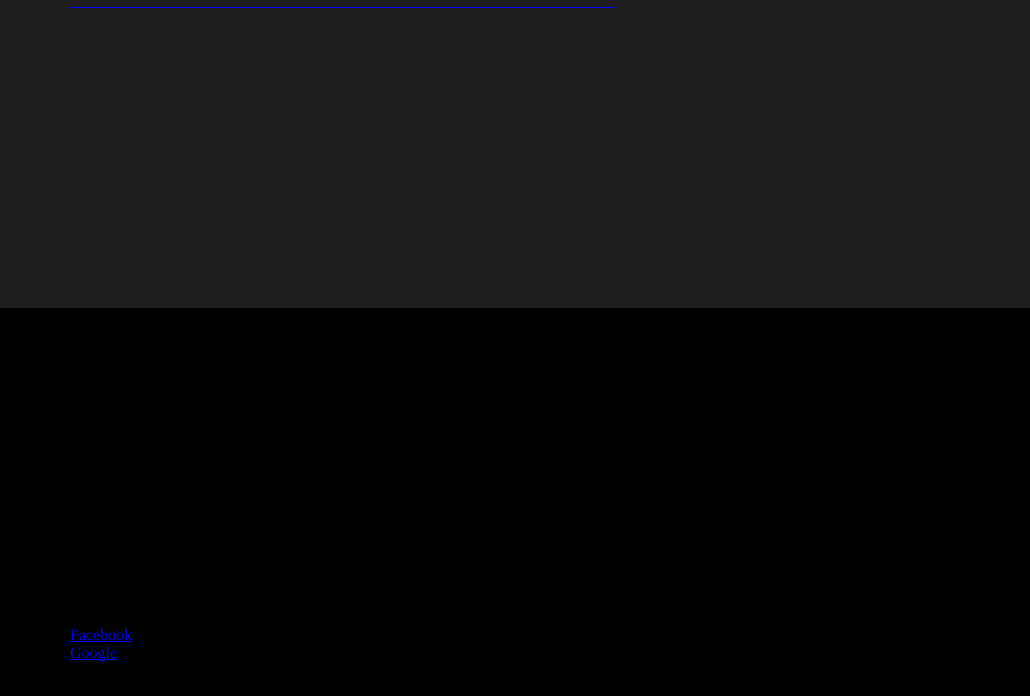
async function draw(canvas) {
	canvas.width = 1030;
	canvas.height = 696;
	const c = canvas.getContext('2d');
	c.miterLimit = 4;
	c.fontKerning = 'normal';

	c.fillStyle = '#000';
	c.fillRect(0, 0, 1030, 696);
	c.fillStyle = '#1f1d1d';
	c.fillRect(0, 0, 1030, 308);
	c.fillStyle = '#00e';
	c.fillRect(70, 7, 545, 1);
	c.font = '16px Liberation Serif';
	c.fillText('Facebook', 70, 640);
	c.fillRect(70, 641, 62, 1);
	c.fillRect(70, 659, 47, 1);
	c.fillText('Google', 70, 658);
}

draw(document.querySelector('canvas'));
